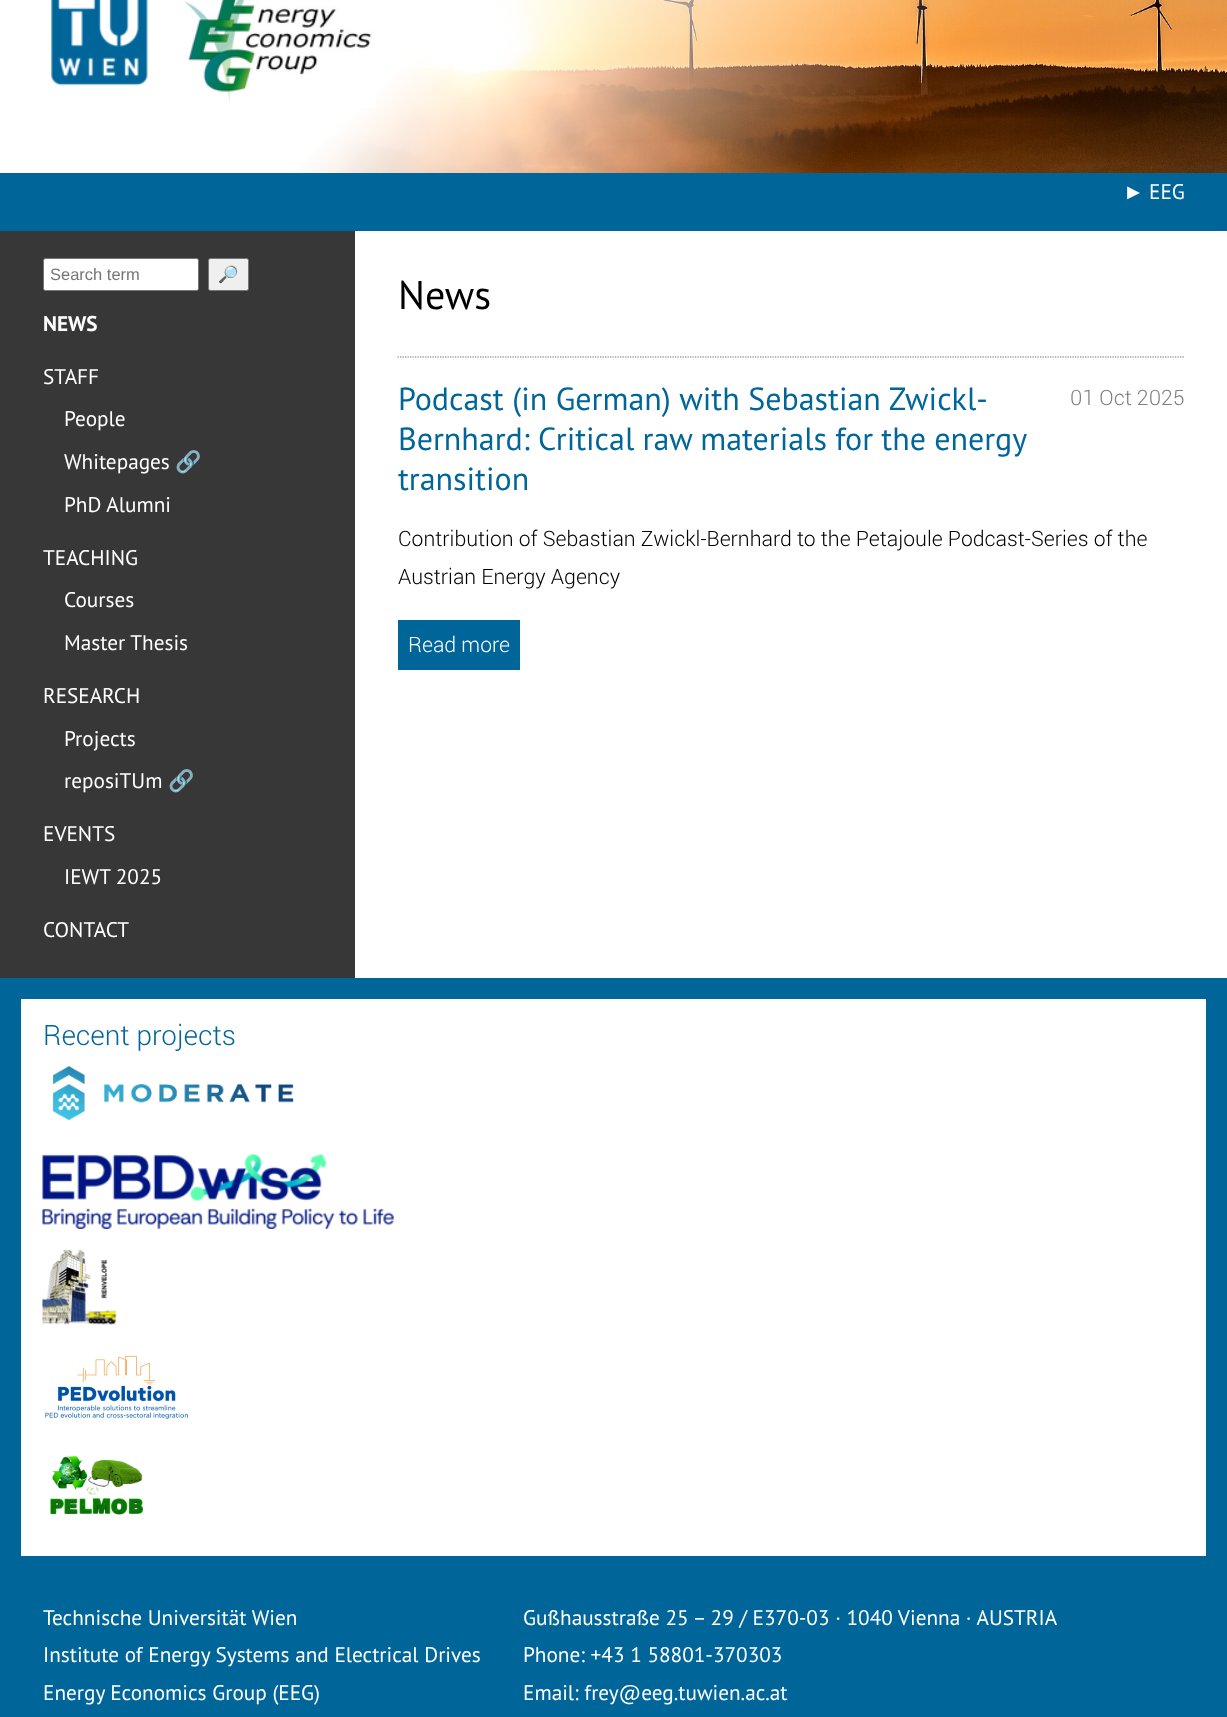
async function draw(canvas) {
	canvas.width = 1227;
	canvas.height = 1717;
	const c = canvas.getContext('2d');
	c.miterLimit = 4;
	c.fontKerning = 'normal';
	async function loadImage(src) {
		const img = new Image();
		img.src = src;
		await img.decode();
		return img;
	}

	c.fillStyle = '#fff';
	c.fillRect(0, 0, 1227, 1717);
	c.drawImage(await loadImage('img1.png'), 0, 0, 1227, 173);
	c.drawImage(await loadImage('img2.png'), 51, 0, 97, 86);
	c.drawImage(await loadImage('img3.png'), 184, 0, 192, 108);
	c.fillStyle = '#069';
	c.fillRect(0, 173, 1227, 1544);
	c.font = '21.25px Liberation Sans';
	c.fillStyle = '#fff';
	c.fillText('►', 1123, 199);
	c.font = '21.25px PT Sans';
	c.fillText('EEG', 1149, 199);
	c.fillRect(355, 231, 872, 747);
	c.fillStyle = '#373737';
	c.fillRect(0, 231, 355, 747);
	c.fillStyle = '#fff';
	c.beginPath();
	c.roundRect(43.5, 258.5, 155, 32, 2);
	c.fill();
	c.strokeStyle = '#767676';
	c.stroke();
	c.font = '16.5px Liberation Sans';
	c.fillStyle = '#757575';
	c.fillText('Search term', 50, 280);
	c.fillStyle = '#efefef';
	c.beginPath();
	c.roundRect(208.5, 258.5, 40, 32, 2);
	c.fill();
	c.stroke();
	c.font = '16.5px Noto Color Emoji';
	c.fillStyle = '#000';
	c.fillText('🔎', 218, 280);
	c.font = 'bold 21.25px PT Sans';
	c.fillStyle = '#fff';
	c.fillText('NEWS', 43, 331);
	c.font = '21.25px PT Sans';
	for (const [text, x, y] of [
		['STAFF', 43, 384],
		['People', 64, 426],
		['Whitepages', 64, 469],
	]) {
		c.fillText(text, x, y);
	}
	c.font = '21.25px Noto Color Emoji';
	c.fillText('🔗', 175, 469);
	c.font = '21.25px PT Sans';
	for (const [text, x, y] of [
		['PhD Alumni', 64, 512],
		['TEACHING', 43, 565],
		['Courses', 64, 607],
		['Master Thesis', 64, 650],
		['RESEARCH', 43, 703],
		['Projects', 64, 746],
		['reposiTUm', 64, 788],
	]) {
		c.fillText(text, x, y);
	}
	c.font = '21.25px Noto Color Emoji';
	c.fillText('🔗', 168, 788);
	c.font = '21.25px PT Sans';
	for (const [text, x, y] of [
		['EVENTS', 43, 841],
		['IEWT 2025', 64, 884],
		['CONTACT', 43, 937],
	]) {
		c.fillText(text, x, y);
	}
	c.font = '40px PT Sans';
	c.fillStyle = '#000';
	c.fillText('News', 398, 309);
	c.beginPath();
	c.moveTo(397.5, 357);
	c.lineTo(1185, 357);
	c.strokeStyle = '#676767';
	c.lineWidth = 1.2;
	c.setLineDash([1.25, 1.25]);
	c.stroke();
	c.font = '32px PT Sans';
	c.fillStyle = '#069';
	c.fillText('Podcast (in German) with Sebastian Zwickl-', 398, 410);
	c.wordSpacing = '-0.25px';
	c.fillText('Bernhard: Critical raw materials for the energy', 398, 450);
	c.wordSpacing = '0px';
	c.fillText('transition', 398, 490);
	c.font = '300 21.25px Roboto';
	c.fillStyle = '#808080';
	c.fillText('01 Oct 2025', 1070, 405);
	c.fillStyle = '#000';
	c.fillText('Contribution of Sebastian Zwickl-Bernhard to the Petajoule Podcast-Series of the', 398, 546);
	c.fillText('Austrian Energy Agency', 398, 584);
	c.fillStyle = '#069';
	c.fillRect(398, 620, 122, 50);
	c.fillStyle = '#fff';
	c.fillText('Read more', 408, 652);
	c.fillRect(21, 999, 1185, 557);
	c.font = '300 28px Roboto';
	c.fillStyle = '#069';
	c.fillText('Recent projects', 43, 1045);
	c.drawImage(await loadImage('img4.png'), 53, 1066, 241, 54);
	c.drawImage(await loadImage('img5.png'), 42, 1154, 352, 75);
	c.drawImage(await loadImage('img6.png'), 42, 1250, 75, 75);
	c.drawImage(await loadImage('img7.png'), 45, 1355, 143, 65);
	c.drawImage(await loadImage('img8.png'), 50, 1456, 94, 59);
	c.font = '21.25px PT Sans';
	c.fillStyle = '#fff';
	for (const [text, x, y] of [
		['Technische Universität Wien', 43, 1625],
		['Institute of Energy Systems and Electrical Drives', 43, 1662],
		['Energy Economics Group (EEG)', 43, 1700],
		['Gußhausstraße 25 – 29 / E370-03 · 1040 Vienna · AUSTRIA', 523, 1625],
		['Phone: +43 1 58801-370303', 523, 1662],
		['Email: frey@eeg.tuwien.ac.at', 523, 1700],
	]) {
		c.fillText(text, x, y);
	}
}

draw(document.querySelector('canvas'));
